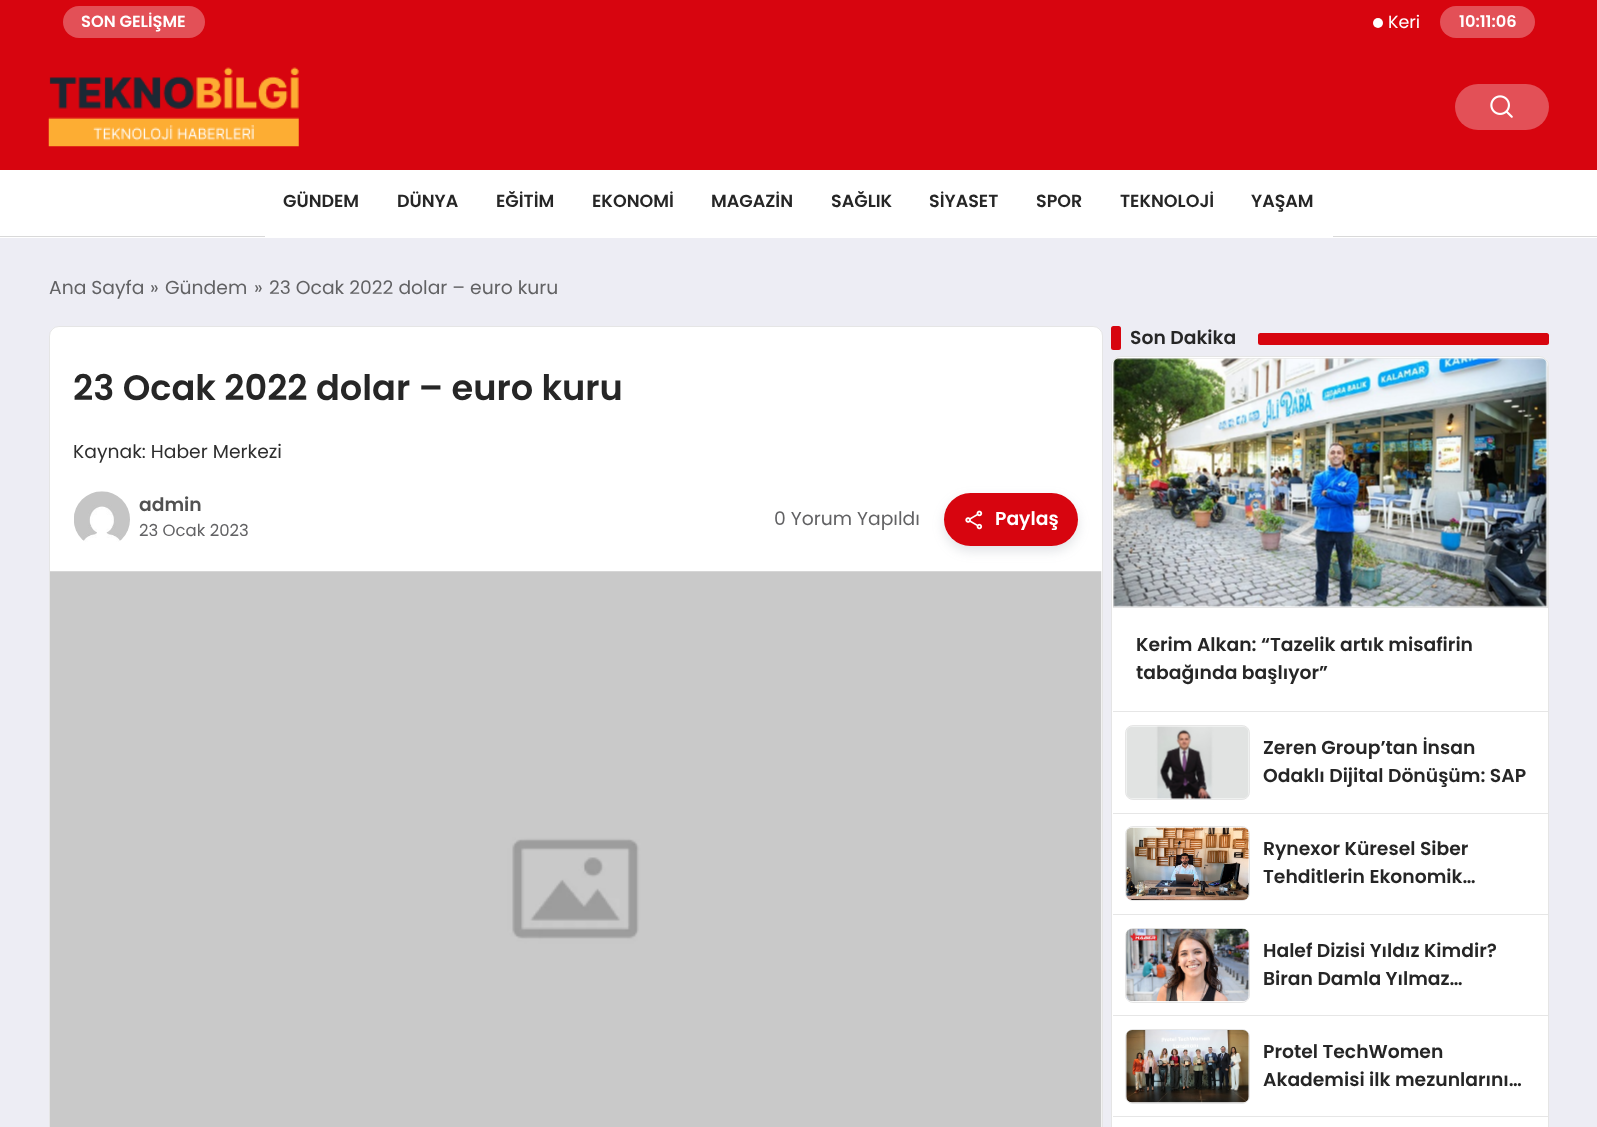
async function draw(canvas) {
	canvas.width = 1597;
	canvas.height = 1127;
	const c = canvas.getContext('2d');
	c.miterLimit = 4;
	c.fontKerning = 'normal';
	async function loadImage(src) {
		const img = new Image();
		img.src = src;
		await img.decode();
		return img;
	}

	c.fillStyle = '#ededf4';
	c.fillRect(0, 0, 1597, 1127);
	c.fillStyle = '#d7050f';
	c.fillRect(0, 0, 1597, 170);
	c.fillStyle = '#e35057';
	c.beginPath();
	c.roundRect(63, 6, 142, 32, 16);
	c.fill();
	c.font = '600 16.25px Poppins';
	c.fillStyle = '#fff';
	c.fillText('SON GELİŞME', 81, 27);
	c.beginPath();
	c.arc(1378, 23, 5, 0, 2 * Math.PI);
	c.fill();
	c.font = '17.5px Poppins';
	c.fillText('Keri', 1388, 28);
	c.fillStyle = '#e35057';
	c.beginPath();
	c.roundRect(1440, 6, 95, 32, 16);
	c.fill();
	c.font = '600 16.25px Poppins';
	c.fillStyle = '#fff';
	c.fillText('10:11:06', 1459, 27);
	c.drawImage(await loadImage('img1.png'), 48, 67, 251, 80);
	c.fillStyle = '#e35057';
	c.beginPath();
	c.roundRect(1455, 84, 94, 46, 23);
	c.fill();
	c.drawImage(await loadImage('img2.png'), 1490, 95, 23, 23);
	for (const [x, y, w, h, color] of [
		[0, 170, 1597, 68, '#fff'],
		[0, 236, 1597, 1, '#d9d9d9'],
		[265, 236, 1068, 1, '#fff'],
	]) {
		c.fillStyle = color;
		c.fillRect(x, y, w, h);
	}
	c.font = '600 17.5px Poppins';
	c.fillStyle = '#262626';
	for (const [text, x, y] of [
		['GÜNDEM', 283, 207],
		['DÜNYA', 397, 207],
		['EĞİTİM', 496, 207],
		['EKONOMİ', 592, 207],
		['MAGAZİN', 711, 207],
		['SAĞLIK', 831, 207],
		['SİYASET', 929, 207],
		['SPOR', 1036, 207],
		['TEKNOLOJİ', 1120, 207],
		['YAŞAM', 1251, 207],
	]) {
		c.fillText(text, x, y);
	}
	c.font = '18.75px Poppins';
	c.fillStyle = '#626264';
	for (const [text, x, y] of [
		['Ana Sayfa', 49, 294],
		['»', 150, 294],
		['Gündem', 165, 294],
		['»', 254, 294],
		['23 Ocak 2022 dolar – euro kuru', 269, 294],
	]) {
		c.fillText(text, x, y);
	}
	c.fillStyle = '#fff';
	c.beginPath();
	c.roundRect(49, 326, 1054, 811, 10);
	c.fill();
	c.beginPath();
	c.roundRect(49.5, 326.5, 1053, 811, 9.5);
	c.strokeStyle = '#0000001a';
	c.stroke();
	c.font = '600 35.2px Poppins';
	c.fillStyle = '#262626';
	c.fillText('23 Ocak 2022 dolar – euro kuru', 73, 400);
	c.font = '18.75px Poppins';
	c.fillStyle = '#2e2e2e';
	c.fillText('Kaynak: Haber Merkezi', 73, 458);
	c.drawImage(await loadImage('img3.png'), 74, 491, 56, 51);
	c.font = '600 18.75px Poppins';
	c.fillStyle = '#515151';
	c.fillText('admin', 139, 511);
	c.font = '16.5px Poppins';
	c.fillStyle = '#626264';
	c.fillText('23 Ocak 2023', 139, 536);
	c.font = '18.75px Poppins';
	c.fillText('0 Yorum Yapıldı', 774, 525);
	c.fillStyle = '#6b728033';
	c.filter = 'blur(6px)';
	c.beginPath();
	c.roundRect(944, 498, 134, 53, 26.5);
	c.fill();
	c.filter = 'none';
	c.fillStyle = '#d7050f';
	c.beginPath();
	c.roundRect(944, 493, 134, 53, 26.5);
	c.fill();
	c.drawImage(await loadImage('img4.png'), 965, 510, 18, 20);
	c.font = '600 18.75px Poppins';
	c.fillStyle = '#fff';
	c.fillText('Paylaş', 995, 525);
	c.drawImage(await loadImage('img5.png'), 50, 571, 1052, 556);
	c.fillStyle = '#d7050f';
	c.beginPath();
	c.roundRect(1111, 326, 10, 24, 2.5);
	c.fill();
	c.fillStyle = '#262626';
	c.fillText('Son Dakika', 1130, 344);
	c.fillStyle = '#d7050f';
	c.beginPath();
	c.roundRect(1258, 333, 291, 12, 2.5);
	c.fill();
	c.fillStyle = '#fff';
	c.beginPath();
	c.roundRect(1111, 356, 438, 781, 10);
	c.fill();
	c.beginPath();
	c.roundRect(1111.5, 356.5, 437, 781, 9.5);
	c.stroke();
	c.fillStyle = '#e6e6e6';
	c.fillRect(1113, 711, 435, 1);
	c.fillStyle = '#e5e5e5';
	c.beginPath();
	c.moveTo(1113, 367);
	c.lineTo(1113, 608);
	c.lineTo(1548, 608);
	c.lineTo(1548, 367);
	c.lineTo(1547, 363);
	c.lineTo(1547, 607);
	c.lineTo(1114, 607);
	c.lineTo(1114, 363);
	c.closePath();
	c.moveTo(1122, 358);
	c.lineTo(1118, 359);
	c.lineTo(1543, 359);
	c.lineTo(1539, 358);
	c.closePath();
	c.fill('evenodd');
	c.drawImage(await loadImage('img6.png'), 1113, 358, 434, 249);
	c.fillStyle = '#262626';
	c.fillText('Kerim Alkan: “Tazelik artık misafirin', 1136, 651);
	c.fillText('tabağında başlıyor”', 1136, 679);
	c.fillStyle = '#e6e6e6';
	c.fillRect(1113, 813, 435, 1);
	c.beginPath();
	c.roundRect(1125.5, 725.5, 124, 74, 7.5);
	c.strokeStyle = '#e6e6e6';
	c.stroke();
	c.drawImage(await loadImage('img7.png'), 1126, 726, 123, 74);
	c.fillStyle = '#262626';
	c.fillText('Zeren Group’tan İnsan', 1263, 754);
	c.fillText('Odaklı Dijital Dönüşüm: SAP', 1263, 782);
	c.fillStyle = '#e6e6e6';
	c.fillRect(1113, 914, 435, 1);
	c.beginPath();
	c.roundRect(1125.5, 826.5, 124, 74, 7.5);
	c.stroke();
	c.drawImage(await loadImage('img8.png'), 1126, 827, 123, 73);
	c.fillStyle = '#262626';
	c.fillText('Rynexor Küresel Siber', 1263, 855);
	c.fillText('Tehditlerin Ekonomik…', 1263, 883);
	c.fillStyle = '#e6e6e6';
	c.fillRect(1113, 1015, 435, 1);
	c.beginPath();
	c.roundRect(1125.5, 928.5, 124, 74, 7.5);
	c.stroke();
	c.drawImage(await loadImage('img9.png'), 1126, 928, 123, 74);
	c.fillStyle = '#262626';
	c.fillText('Halef Dizisi Yıldız Kimdir?', 1263, 957);
	c.fillText('Biran Damla Yılmaz…', 1263, 985);
	c.fillStyle = '#e6e6e6';
	c.fillRect(1113, 1116, 435, 1);
	c.beginPath();
	c.roundRect(1125.5, 1029.5, 124, 74, 7.5);
	c.stroke();
	c.drawImage(await loadImage('img10.png'), 1126, 1030, 123, 73);
	c.fillStyle = '#262626';
	c.fillText('Protel TechWomen', 1263, 1058);
	c.fillText('Akademisi ilk mezunlarını…', 1263, 1086);
}

draw(document.querySelector('canvas'));
